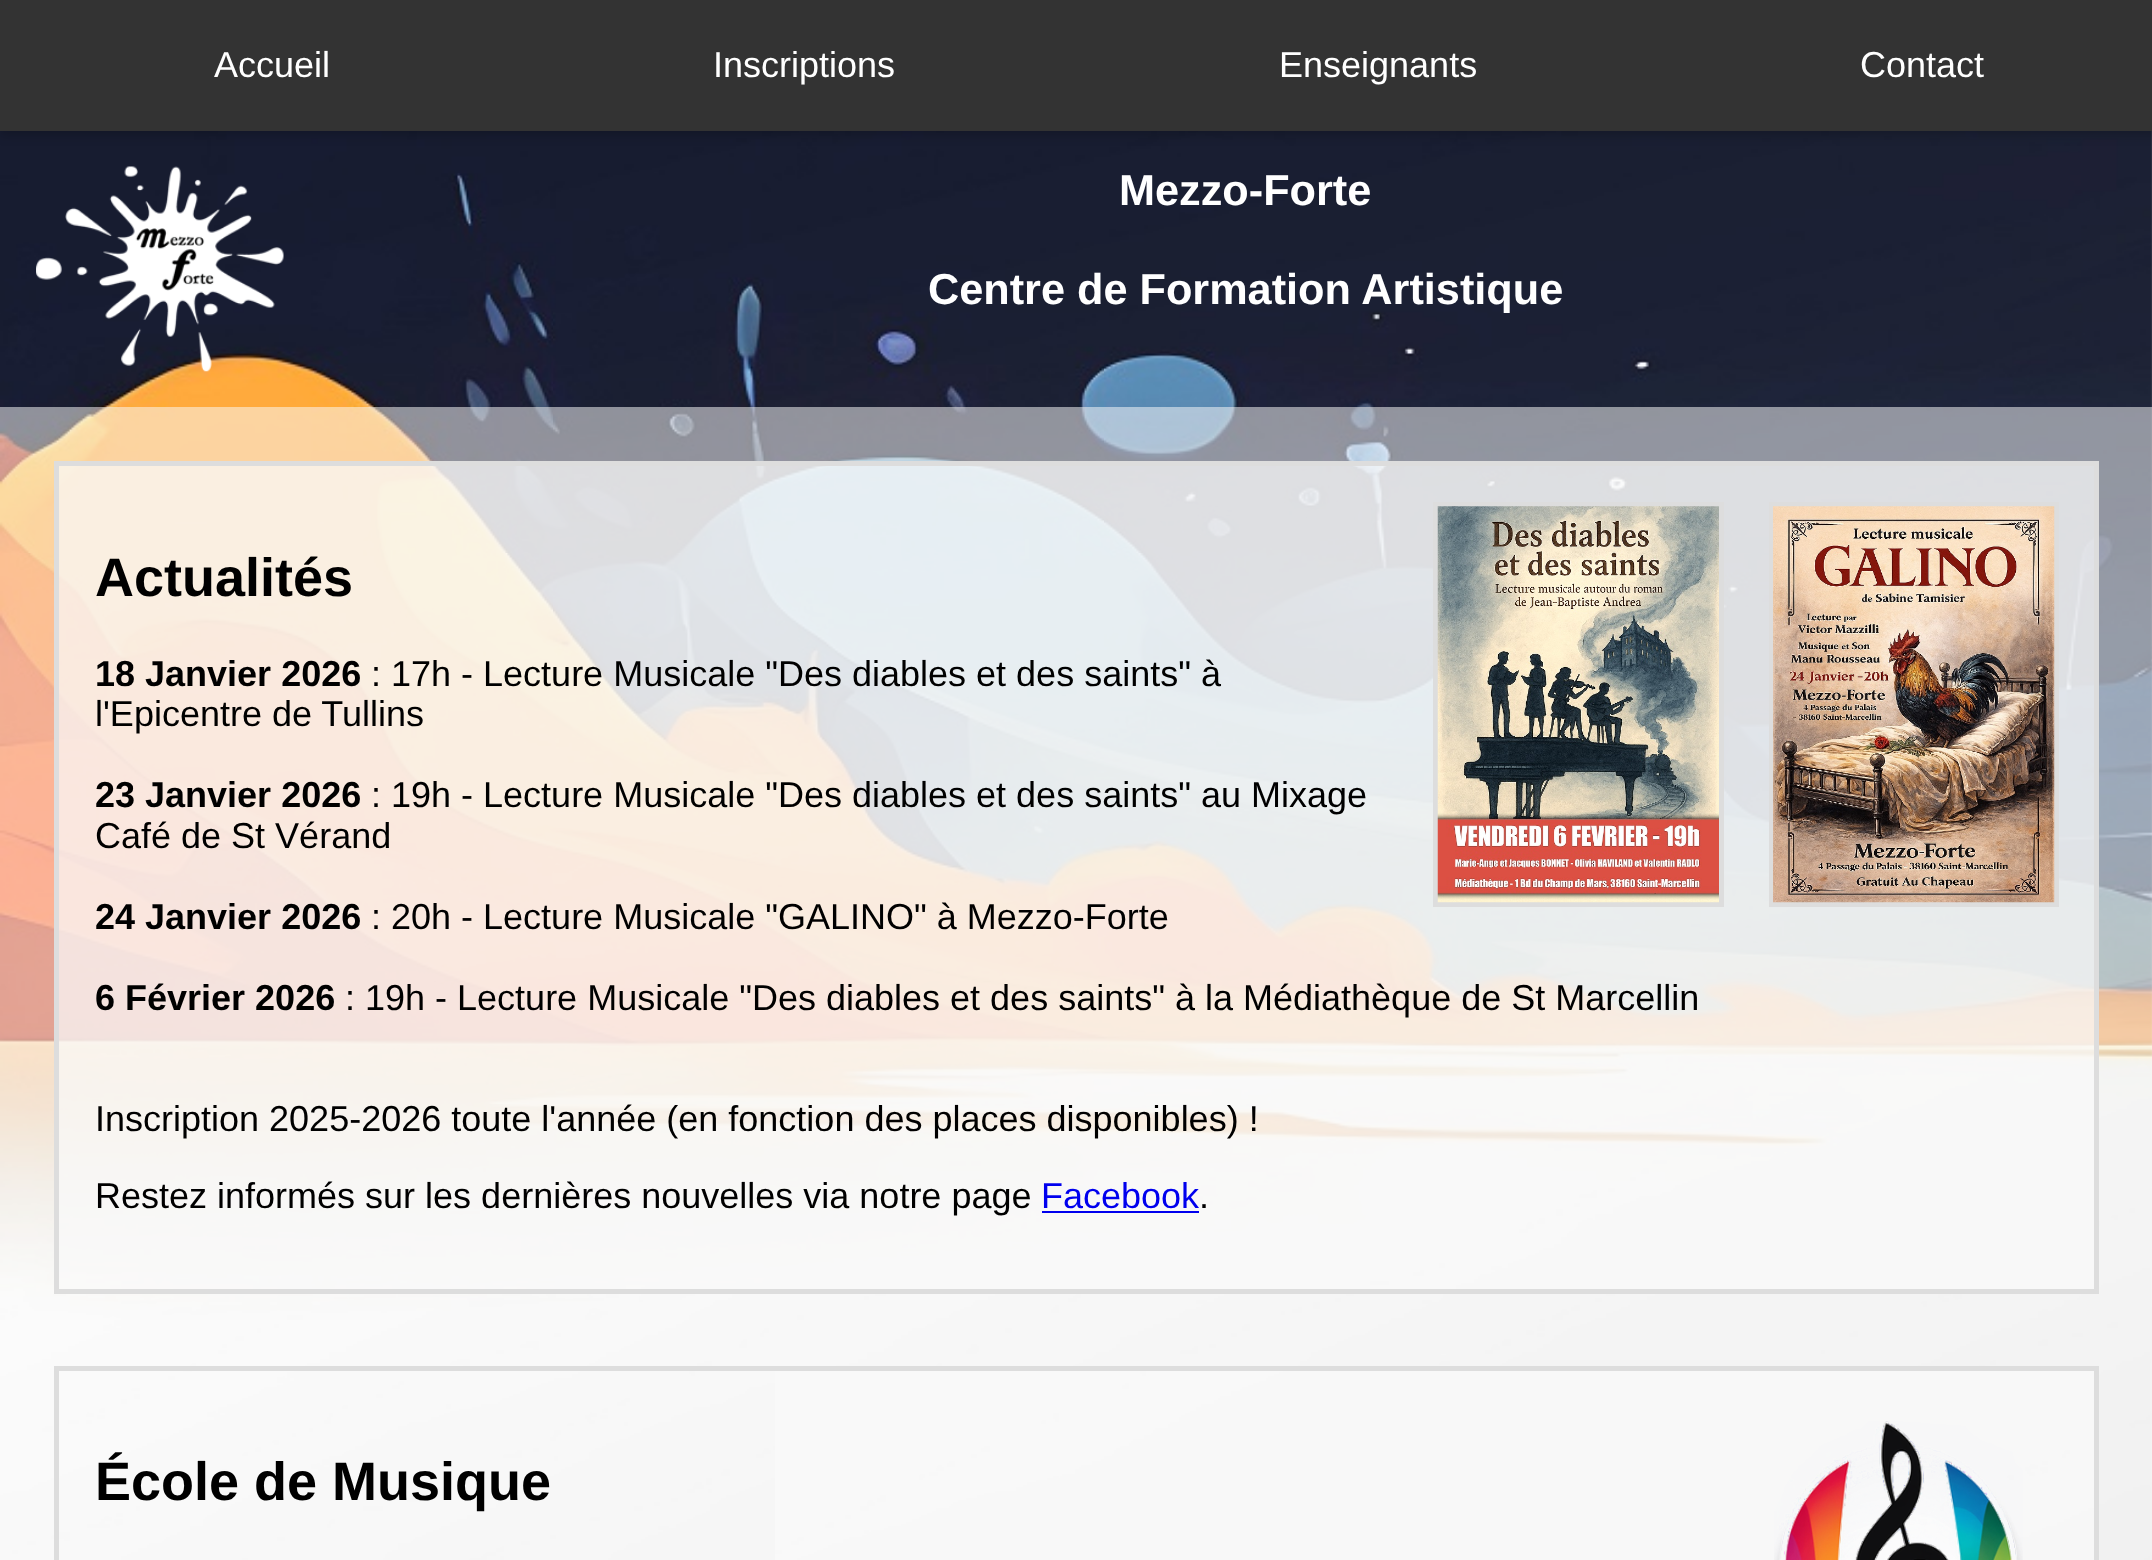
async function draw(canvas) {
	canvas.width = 2152;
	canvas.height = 1560;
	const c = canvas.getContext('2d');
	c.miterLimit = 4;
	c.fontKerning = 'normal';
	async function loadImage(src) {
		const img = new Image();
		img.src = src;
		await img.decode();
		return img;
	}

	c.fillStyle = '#fff';
	c.fillRect(0, 0, 2152, 1560);
	c.drawImage(await loadImage('img1.png'), 0, 131, 2152, 1429);
	c.fillStyle = '#00000033';
	c.filter = 'blur(5.5px)';
	c.beginPath();
	c.rect(0, 5, 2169, 130);
	c.fill();
	c.filter = 'none';
	c.fillStyle = '#333';
	c.fillRect(0, 0, 2152, 131);
	c.font = '36px Liberation Sans';
	c.fillStyle = '#fff';
	for (const [text, x, y] of [
		['Accueil', 214, 77],
		['Inscriptions', 713, 77],
		['Enseignants', 1279, 77],
		['Contact', 1860, 77],
	]) {
		c.fillText(text, x, y);
	}
	c.drawImage(await loadImage('img2.png'), 36, 166, 248, 206);
	c.font = 'bold 43.25px Liberation Sans';
	c.fillText('Mezzo-Forte', 1119, 205);
	c.fillText('Centre de Formation Artistique', 928, 304);
	c.fillStyle = '#f9f9f987';
	c.fillRect(0, 407, 2152, 1153);
	c.fillStyle = '#f9f9f9ba';
	c.beginPath();
	c.rect(56.5, 463.5, 2040, 828);
	c.fill();
	c.strokeStyle = '#ddd';
	c.lineWidth = 5;
	c.stroke();
	c.font = 'bold 54px Liberation Sans';
	c.fillStyle = '#000';
	c.fillText('Actualités', 95, 596);
	c.strokeRect(1435.5, 504.5, 286, 400);
	c.drawImage(await loadImage('img3.png'), 1437, 506, 282, 397);
	c.strokeRect(1771.5, 504.5, 285, 400);
	c.drawImage(await loadImage('img4.png'), 1773, 506, 282, 397);
	c.font = 'bold 36px Liberation Sans';
	c.fillText('18 Janvier 2026', 95, 686);
	c.font = '36px Liberation Sans';
	c.fillText(': 17h - Lecture Musicale "Des diables et des saints" à', 371, 686);
	c.fillText('l\'Epicentre de Tullins', 95, 726);
	c.font = 'bold 36px Liberation Sans';
	c.fillText('23 Janvier 2026', 95, 807);
	c.font = '36px Liberation Sans';
	c.fillText(': 19h - Lecture Musicale "Des diables et des saints" au Mixage', 371, 807);
	c.fillText('Café de St Vérand', 95, 848);
	c.font = 'bold 36px Liberation Sans';
	c.fillText('24 Janvier 2026', 95, 929);
	c.font = '36px Liberation Sans';
	c.fillText(': 20h - Lecture Musicale "GALINO" à Mezzo-Forte', 371, 929);
	c.font = 'bold 36px Liberation Sans';
	c.fillText('6 Février 2026', 95, 1010);
	c.font = '36px Liberation Sans';
	for (const [text, x, y] of [
		[': 19h - Lecture Musicale "Des diables et des saints" à la Médiathèque de St Marcellin', 345, 1010],
		['Inscription 2025-2026 toute l\'année (en fonction des places disponibles) !', 95, 1131],
		['Restez informés sur les dernières nouvelles via notre page', 95, 1208],
	]) {
		c.fillText(text, x, y);
	}
	c.fillStyle = '#00e';
	c.fillText('Facebook', 1041, 1208);
	c.fillRect(1042, 1211, 157, 2);
	c.fillStyle = '#000';
	c.fillText('.', 1199, 1208);
	c.fillStyle = '#f9f9f9ba';
	c.fillRect(775, 1371, 1319, 189);
	c.strokeRect(56.5, 1368.5, 2040, 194);
	c.font = 'bold 54px Liberation Sans';
	c.fillStyle = '#000';
	c.fillText('École de Musique', 95, 1500);
	c.drawImage(await loadImage('img5.png'), 1774, 1421, 249, 139);
}

draw(document.querySelector('canvas'));
